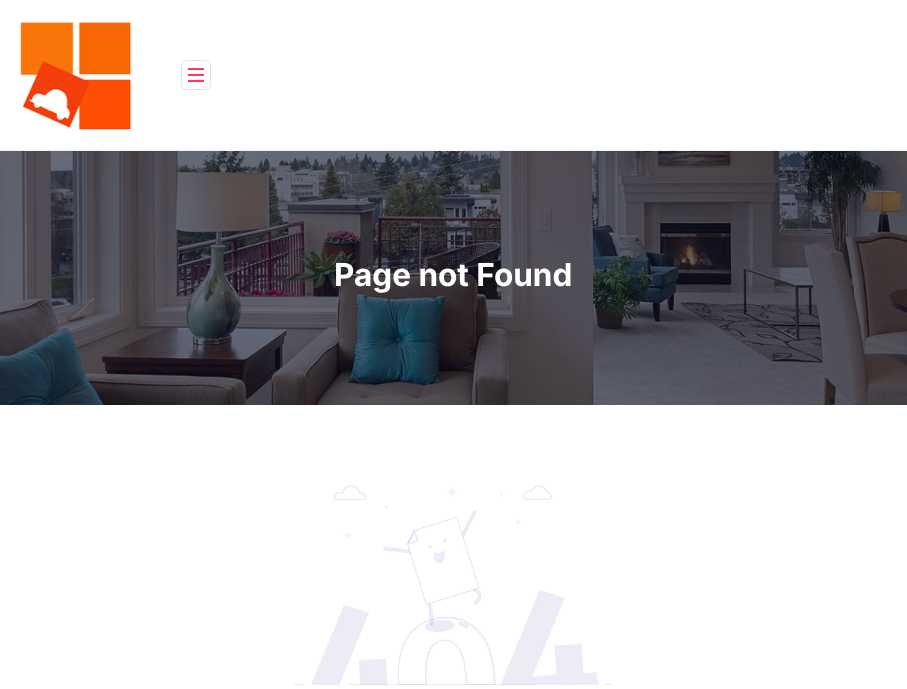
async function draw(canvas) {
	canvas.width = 907;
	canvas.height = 689;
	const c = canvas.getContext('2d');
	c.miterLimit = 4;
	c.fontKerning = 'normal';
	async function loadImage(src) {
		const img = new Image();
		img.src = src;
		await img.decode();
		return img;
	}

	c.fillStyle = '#fff';
	c.fillRect(0, 0, 907, 689);
	c.fillStyle = '#eff1f6';
	c.fillRect(0, 150, 907, 1);
	c.drawImage(await loadImage('img1.png'), 20, 22, 112, 108);
	c.beginPath();
	c.roundRect(181.5, 60.5, 29, 29, 4.5);
	c.strokeStyle = '#e1e4ec';
	c.stroke();
	for (const [x, y, w, h, color] of [
		[188, 68, 16, 2, '#ff385c'],
		[188, 74, 16, 2, '#ff385c'],
		[188, 80, 16, 2, '#ff385c'],
	]) {
		c.fillStyle = color;
		c.fillRect(x, y, w, h);
	}
	c.drawImage(await loadImage('img2.png'), 0, 151, 907, 254);
	c.font = 'bold 31.5px Inter';
	c.fillStyle = '#fff';
	c.fillText('Page not Found', 334, 286);
	c.drawImage(await loadImage('img3.png'), 294, 485, 319, 200);
}

draw(document.querySelector('canvas'));
